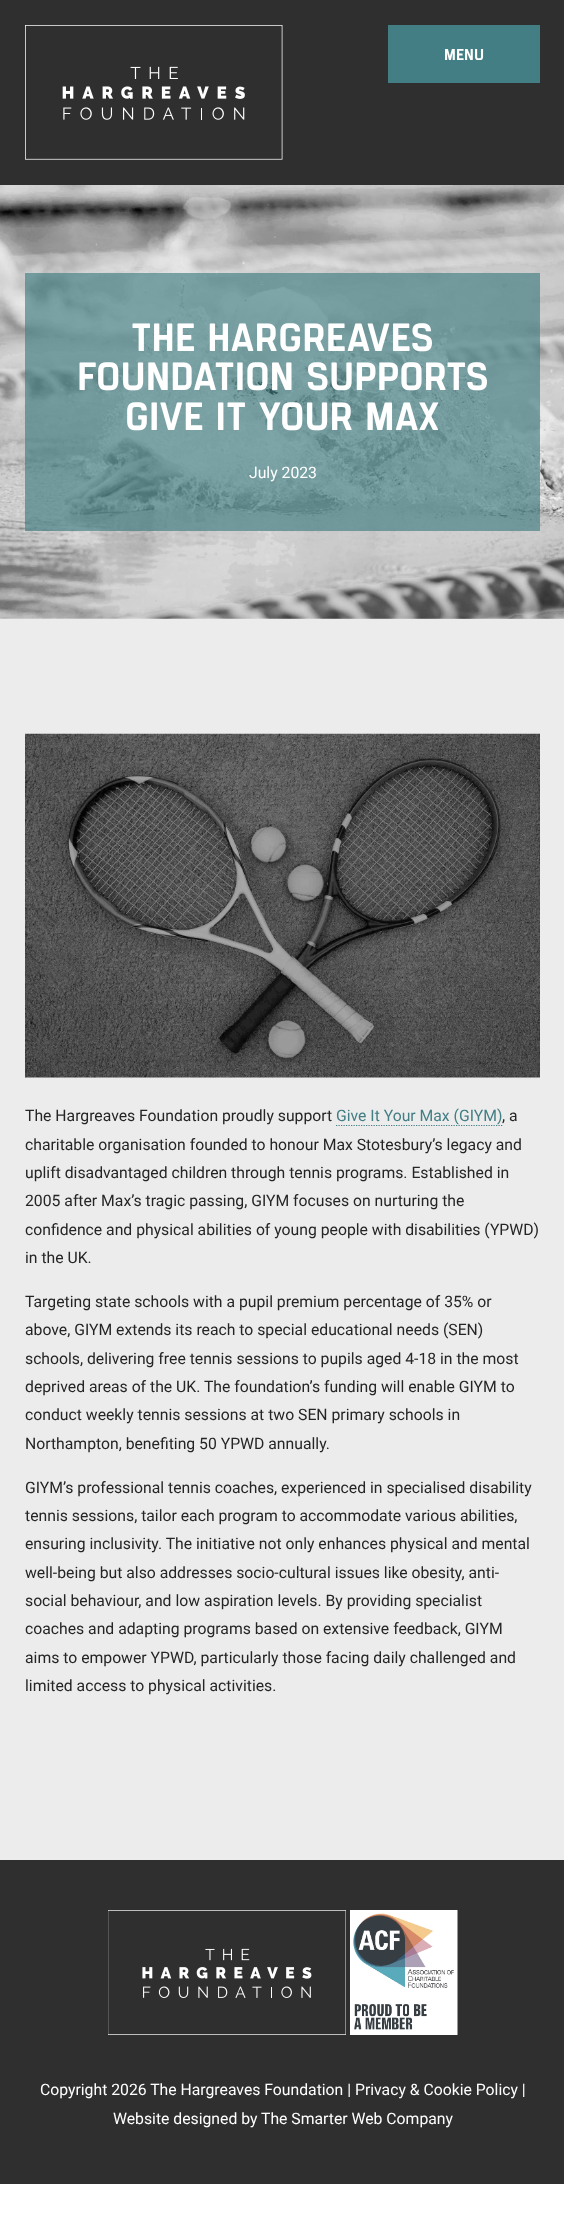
async function draw(canvas) {
	canvas.width = 564;
	canvas.height = 2231;
	const c = canvas.getContext('2d');
	c.miterLimit = 4;
	c.fontKerning = 'normal';
	async function loadImage(src) {
		const img = new Image();
		img.src = src;
		await img.decode();
		return img;
	}

	c.fillStyle = '#fff';
	c.fillRect(0, 0, 564, 2231);
	c.fillStyle = '#2f2f2f';
	c.fillRect(0, 0, 564, 185);
	c.drawImage(await loadImage('img1.png'), 25, 25, 258, 135);
	c.fillStyle = '#427e83';
	c.fillRect(388, 25, 152, 58);
	c.font = '800 15.75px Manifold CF';
	c.fillStyle = '#fff';
	c.fillText('MENU', 444, 60);
	c.drawImage(await loadImage('img2.png'), 0, 185, 564, 434);
	c.fillStyle = '#427e83a8';
	c.fillRect(25, 273, 515, 258);
	c.font = '800 39.4px Manifold CF';
	c.fillStyle = '#fff';
	for (const [text, x, y] of [
		['THE HARGREAVES', 131, 351],
		['FOUNDATION SUPPORTS', 77, 390],
		['GIVE IT YOUR MAX', 125, 430],
	]) {
		c.fillText(text, x, y);
	}
	c.font = '15.75px Roboto';
	c.fillText('July 2023', 249, 478);
	c.fillStyle = '#ececec';
	c.fillRect(0, 619, 564, 1241);
	c.drawImage(await loadImage('img3.png'), 25, 733, 515, 345);
	c.fillStyle = '#252525';
	c.fillText('The Hargreaves Foundation proudly support', 25, 1121);
	c.beginPath();
	c.moveTo(336, 1125.5);
	c.lineTo(502.5, 1125.5);
	c.strokeStyle = '#427e83';
	c.lineWidth = 1.2;
	c.setLineDash([1.25, 1.25]);
	c.stroke();
	c.fillStyle = '#427e83';
	c.fillText('Give It Your Max (GIYM)', 336, 1121);
	c.fillStyle = '#252525';
	for (const [text, x, y] of [
		[', a', 502, 1121],
		['charitable organisation founded to honour Max Stotesbury’s legacy and', 25, 1150],
		['uplift disadvantaged children through tennis programs. Established in', 25, 1178],
		['2005 after Max’s tragic passing, GIYM focuses on nurturing the', 25, 1206],
		['confidence and physical abilities of young people with disabilities (YPWD)', 25, 1235],
		['in the UK.', 25, 1263],
		['Targeting state schools with a pupil premium percentage of 35% or', 25, 1307],
		['above, GIYM extends its reach to special educational needs (SEN)', 25, 1335],
		['schools, delivering free tennis sessions to pupils aged 4-18 in the most', 25, 1364],
		['deprived areas of the UK. The foundation’s funding will enable GIYM to', 25, 1392],
		['conduct weekly tennis sessions at two SEN primary schools in', 25, 1420],
		['Northampton, benefiting 50 YPWD annually.', 25, 1449],
		['GIYM’s professional tennis coaches, experienced in specialised disability', 25, 1493],
		['tennis sessions, tailor each program to accommodate various abilities,', 25, 1521],
		['ensuring inclusivity. The initiative not only enhances physical and mental', 25, 1549],
		['well-being but also addresses socio-cultural issues like obesity, anti-', 25, 1578],
		['social behaviour, and low aspiration levels. By providing specialist', 25, 1606],
		['coaches and adapting programs based on extensive feedback, GIYM', 25, 1634],
		['aims to empower YPWD, particularly those facing daily challenged and', 25, 1663],
		['limited access to physical activities.', 25, 1691],
	]) {
		c.fillText(text, x, y);
	}
	c.fillStyle = '#2f2f2f';
	c.fillRect(0, 1860, 564, 324);
	c.drawImage(await loadImage('img4.png'), 108, 1910, 238, 125);
	c.drawImage(await loadImage('img5.png'), 350, 1910, 108, 125);
	c.fillStyle = '#fff';
	for (const [text, x, y] of [
		['Copyright 2026 The Hargreaves Foundation | Privacy & Cookie Policy |', 40, 2095],
		['Website designed by', 113, 2124],
		['The Smarter Web Company', 261, 2124],
	]) {
		c.fillText(text, x, y);
	}
}

draw(document.querySelector('canvas'));
